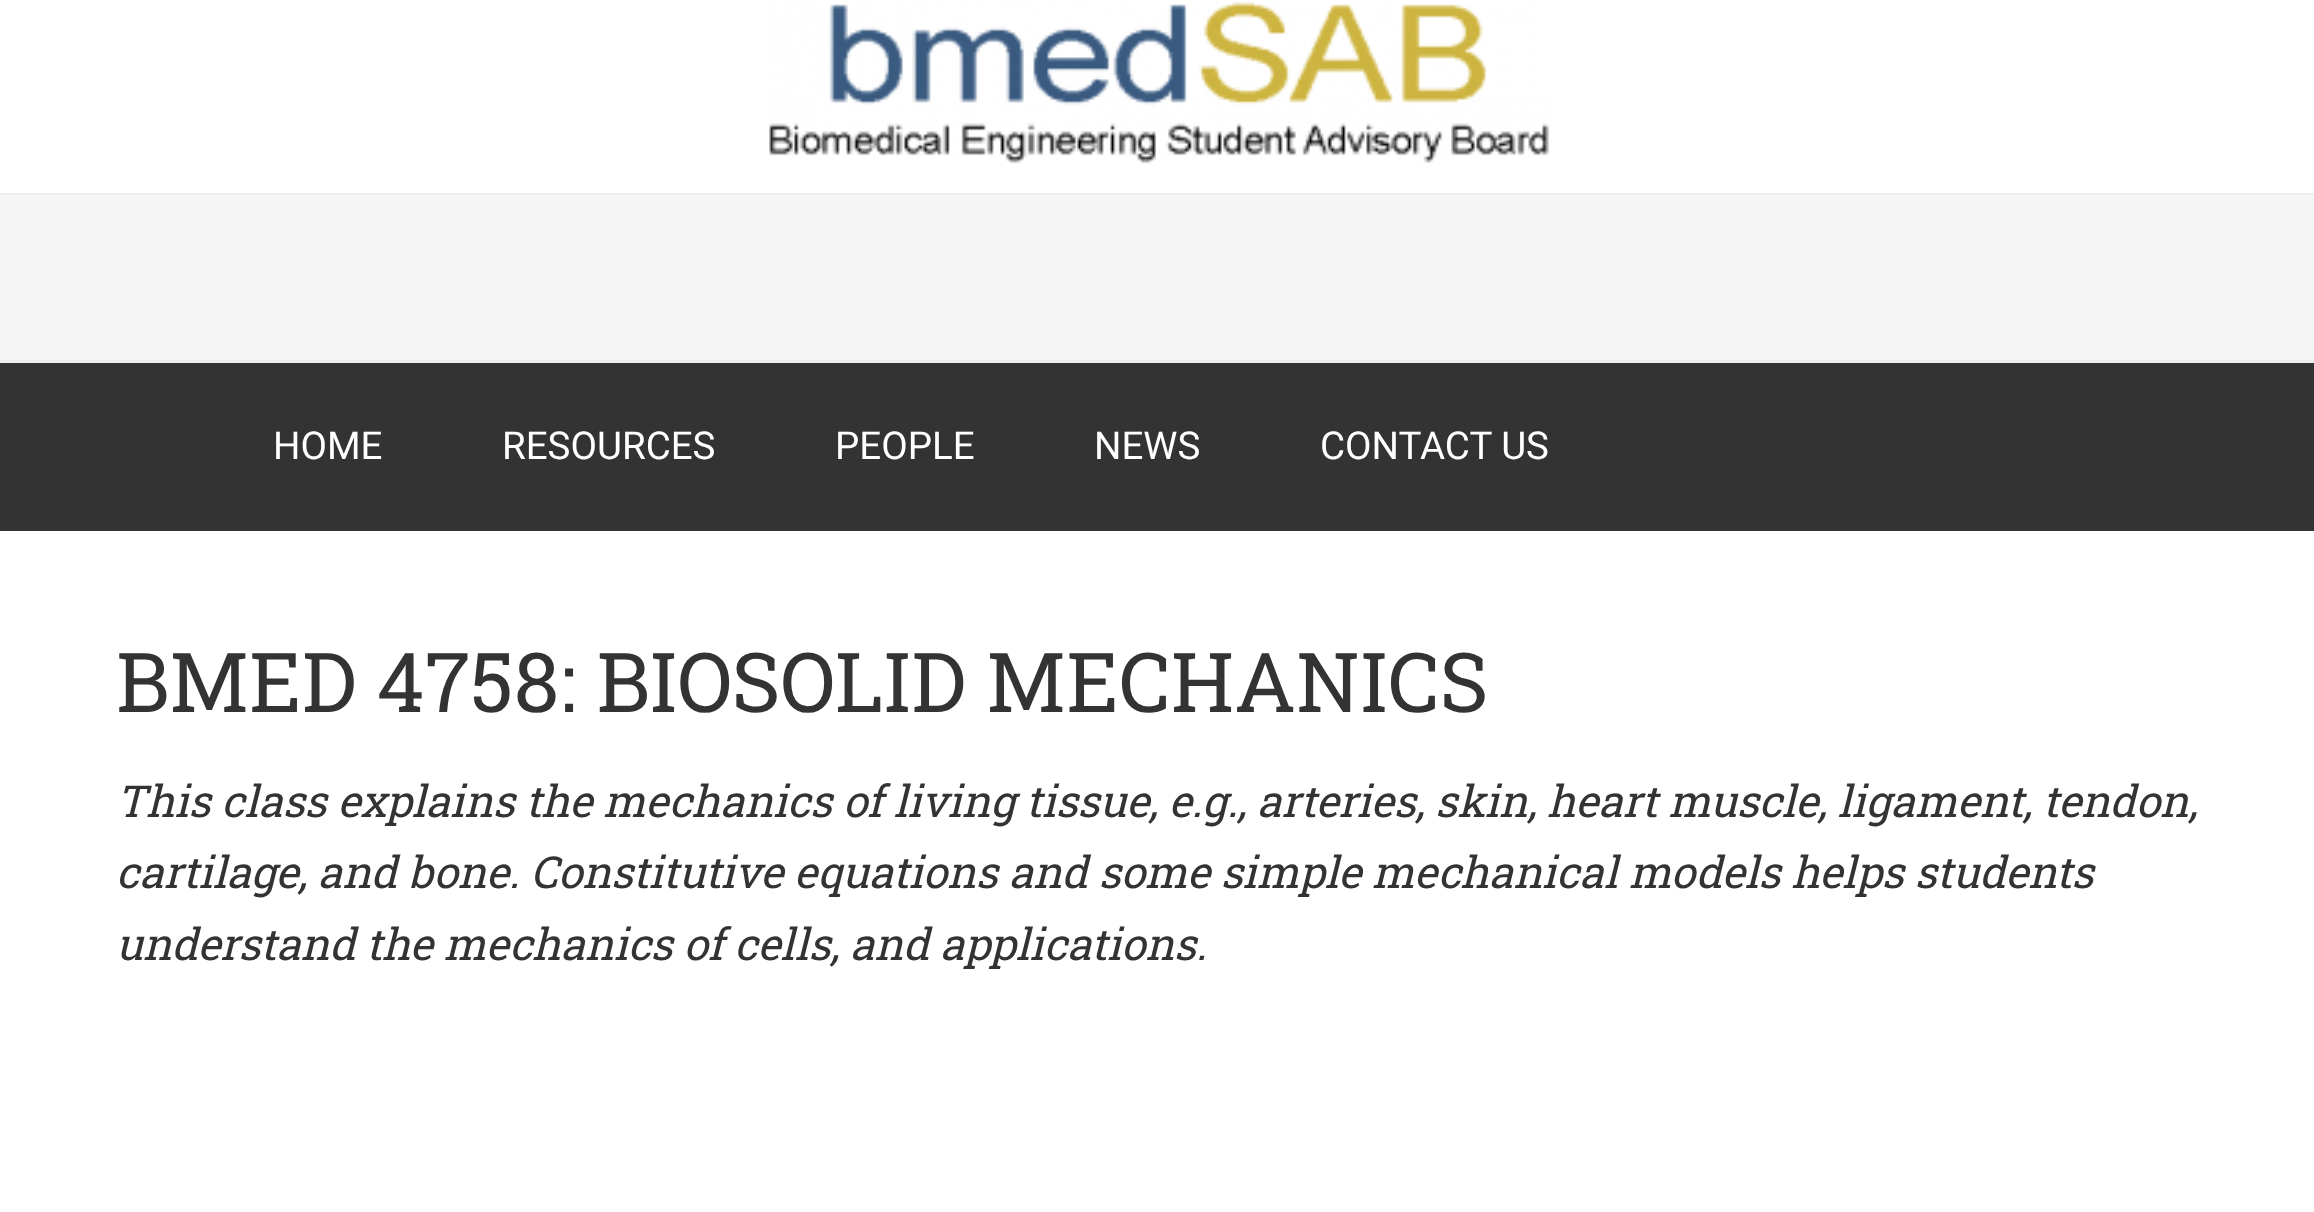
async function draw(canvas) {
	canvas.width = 2314;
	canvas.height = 1212;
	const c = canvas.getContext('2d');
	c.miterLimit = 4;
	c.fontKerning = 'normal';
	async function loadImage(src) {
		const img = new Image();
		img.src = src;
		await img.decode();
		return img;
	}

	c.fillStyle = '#fff';
	c.fillRect(0, 0, 2314, 1212);
	c.fillStyle = '#eee';
	c.fillRect(0, 193, 2314, 2);
	c.drawImage(await loadImage('img1.png'), 769, 2, 781, 162);
	for (const [x, y, w, h, color] of [
		[0, 195, 2314, 165, '#f5f5f5'],
		[0, 360, 2314, 3, '#eee'],
		[0, 363, 2314, 168, '#333'],
	]) {
		c.fillStyle = color;
		c.fillRect(x, y, w, h);
	}
	c.font = '38.5px Roboto';
	c.fillStyle = '#fff';
	for (const [text, x, y] of [
		['HOME', 273, 459],
		['RESOURCES', 502, 459],
		['PEOPLE', 835, 459],
		['NEWS', 1094, 459],
		['CONTACT US', 1320, 459],
	]) {
		c.fillText(text, x, y);
	}
	c.font = '82.5px Roboto Slab';
	c.fillStyle = '#333';
	c.fillText('BMED 4758: BIOSOLID MECHANICS', 116, 712);
	c.font = 'italic 44px Roboto Slab';
	for (const [text, x, y] of [
		['This class explains the mechanics of living tissue, e.g., arteries, skin, heart muscle, ligament, tendon,', 116, 817],
		['cartilage, and bone. Constitutive equations and some simple mechanical models helps students', 116, 888],
		['understand the mechanics of cells, and applications.', 116, 960],
	]) {
		c.fillText(text, x, y);
	}
}

draw(document.querySelector('canvas'));
